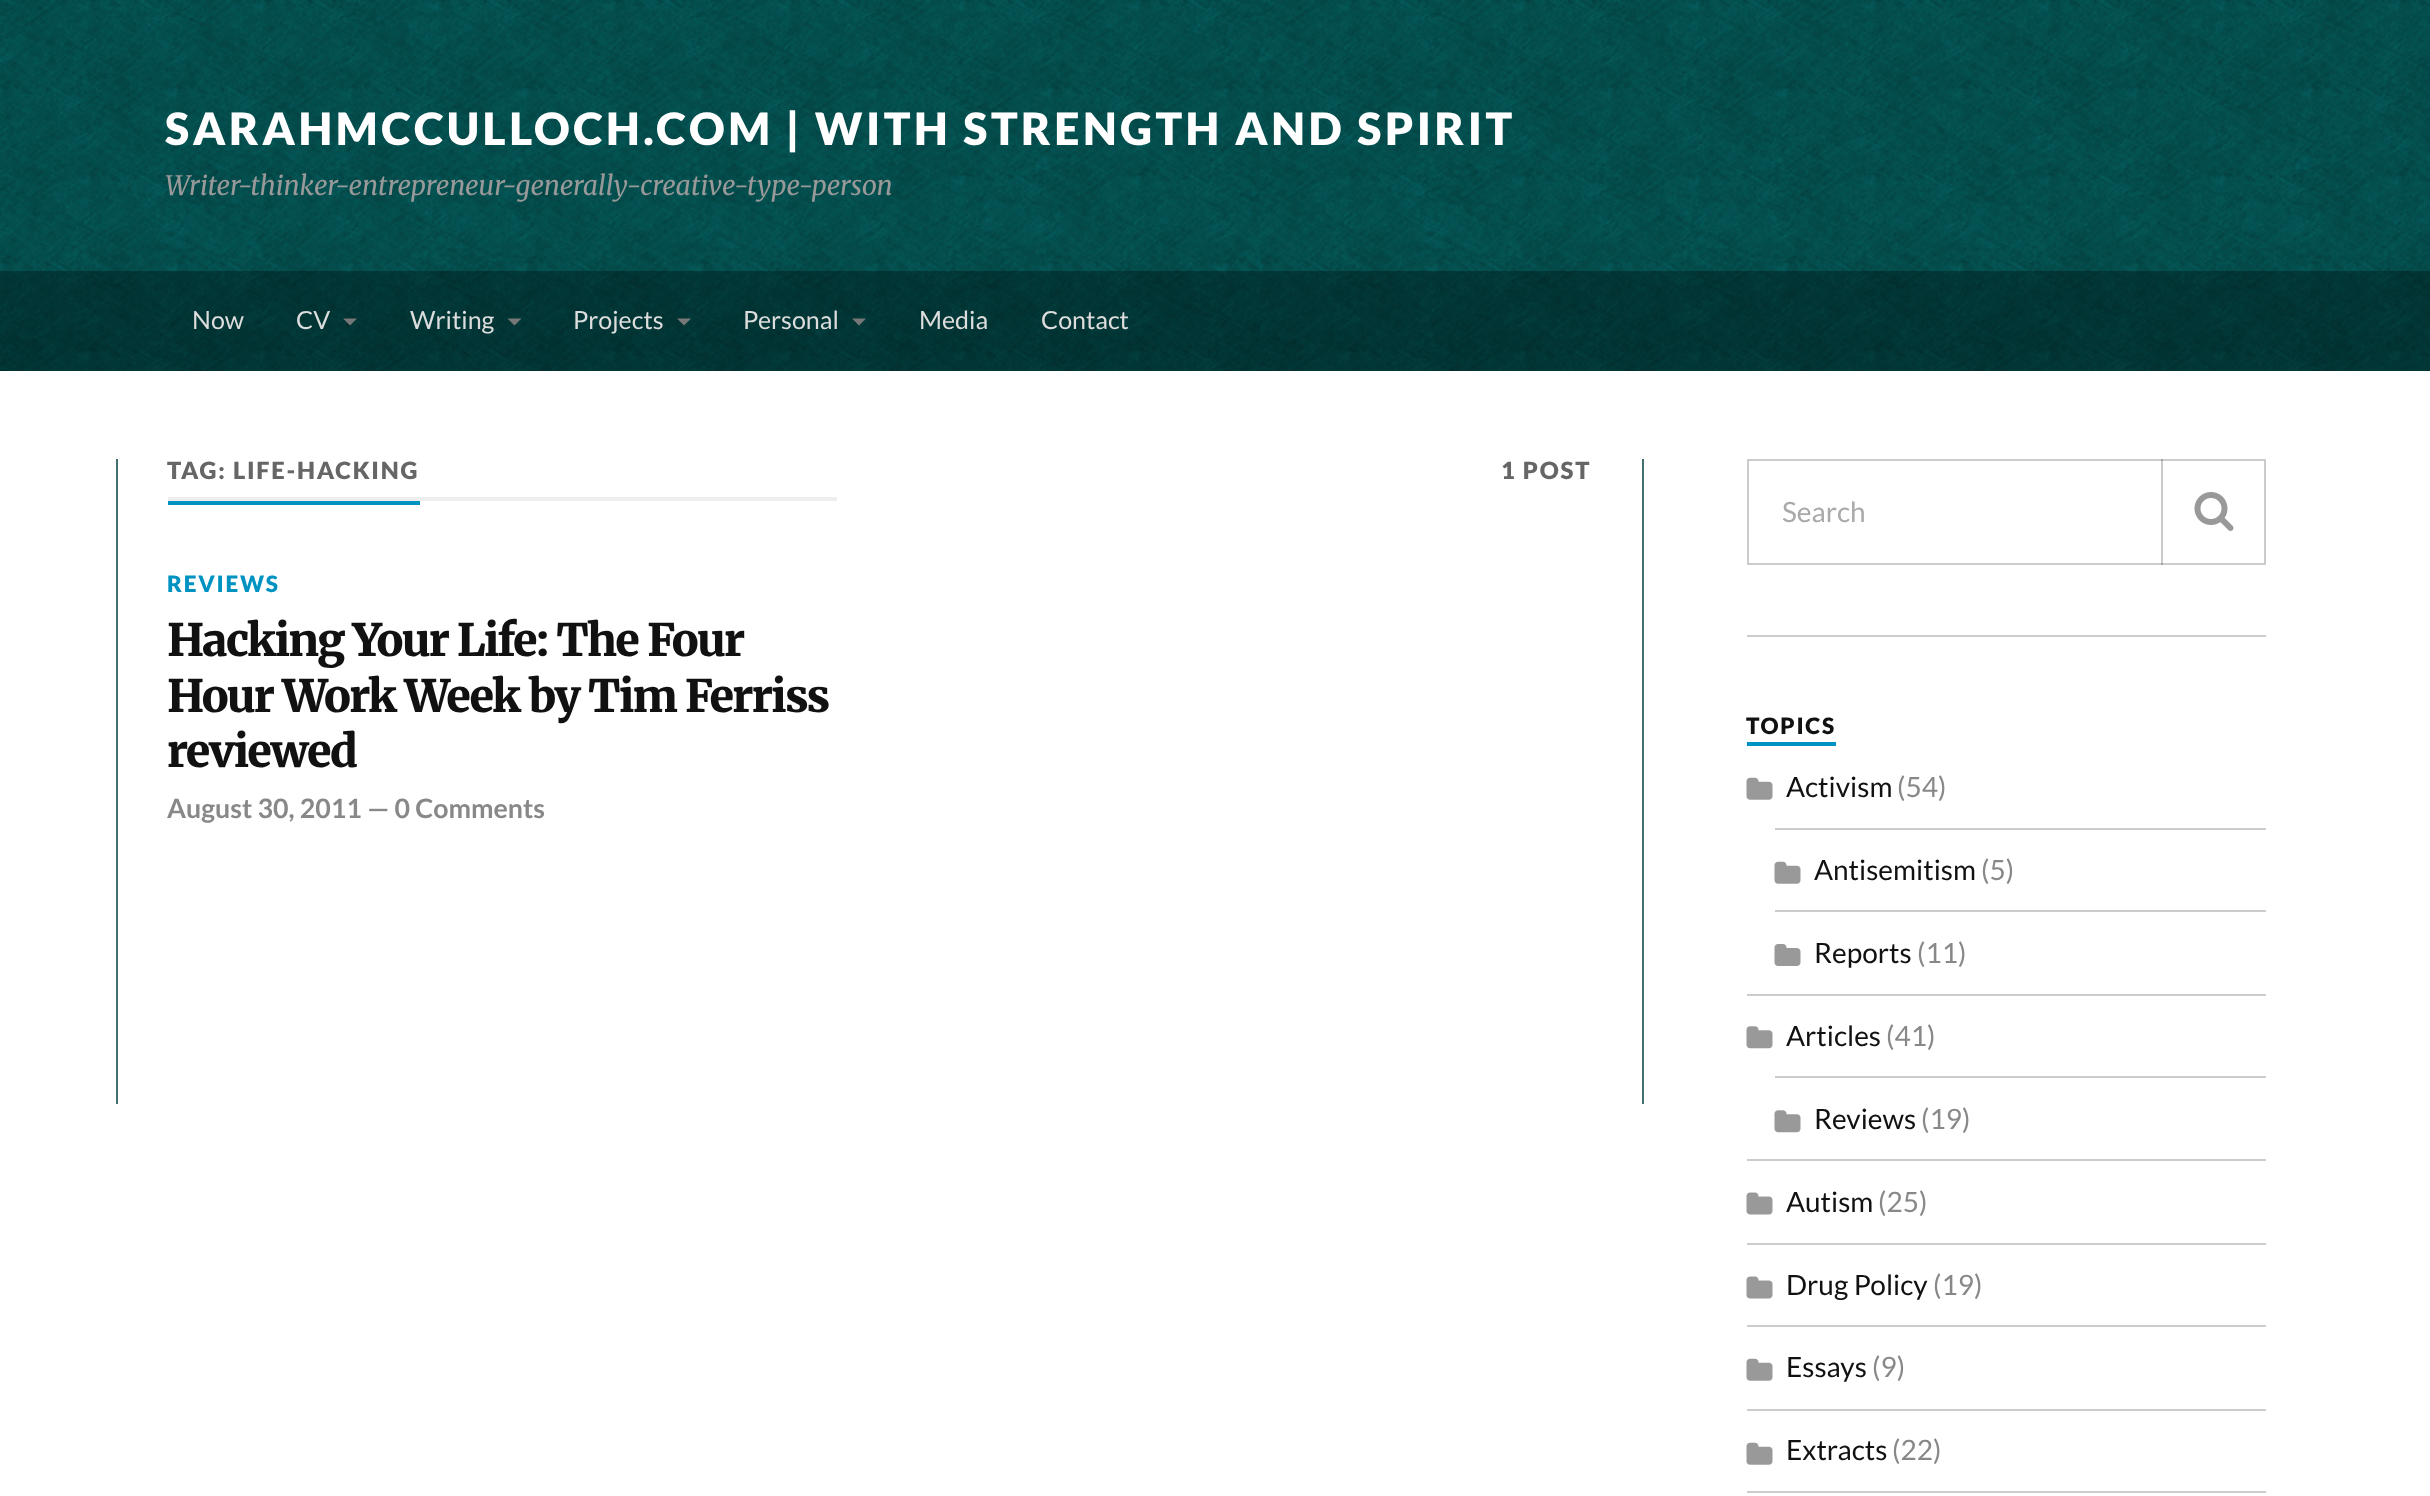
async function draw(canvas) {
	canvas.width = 2430;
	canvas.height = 1496;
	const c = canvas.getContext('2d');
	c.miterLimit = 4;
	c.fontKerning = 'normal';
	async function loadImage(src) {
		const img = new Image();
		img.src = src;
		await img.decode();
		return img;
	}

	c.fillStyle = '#fff';
	c.fillRect(0, 0, 2430, 1496);
	c.drawImage(await loadImage('img1.png'), 0, 0, 2430, 371);
	c.letterSpacing = '3.5px';
	c.font = '900 44.6px Lato';
	c.fillText('SARAHMCCULLOCH.COM | WITH STRENGTH AND SPIRIT', 165, 145);
	c.letterSpacing = '0px';
	c.font = 'italic 300 26.75px Merriweather';
	c.fillStyle = '#999';
	c.fillText('Writer-thinker-entrepreneur-generally-creative-type-person', 165, 195);
	c.fillStyle = '#0000004d';
	c.fillRect(0, 271, 2430, 100);
	c.font = '25px Lato';
	c.fillStyle = '#ddd';
	c.fillText('Now', 192, 329);
	c.fillText('CV', 296, 329);
	c.fillStyle = '#777';
	c.beginPath();
	c.moveTo(343, 318.5);
	c.lineTo(357, 318.5);
	c.lineTo(350, 325.5);
	c.closePath();
	c.fill();
	c.fillStyle = '#ddd';
	c.fillText('Writing', 410, 329);
	c.fillStyle = '#777';
	c.beginPath();
	c.moveTo(507.5, 318.5);
	c.lineTo(521.5, 318.5);
	c.lineTo(514.5, 325.5);
	c.closePath();
	c.fill();
	c.fillStyle = '#ddd';
	c.fillText('Projects', 573, 329);
	c.fillStyle = '#777';
	c.beginPath();
	c.moveTo(677, 318.5);
	c.lineTo(691, 318.5);
	c.lineTo(684, 325.5);
	c.closePath();
	c.fill();
	c.fillStyle = '#ddd';
	c.fillText('Personal', 743, 329);
	c.fillStyle = '#777';
	c.beginPath();
	c.moveTo(852, 318.5);
	c.lineTo(866, 318.5);
	c.lineTo(859, 325.5);
	c.closePath();
	c.fill();
	c.fillStyle = '#ddd';
	c.fillText('Media', 919, 329);
	c.fillText('Contact', 1041, 329);
	c.fillStyle = '#0093c2';
	c.fillRect(168, 501, 252, 4);
	c.letterSpacing = '1.75px';
	c.font = '900 23.75px Lato';
	c.fillStyle = '#666';
	c.fillText('TAG: LIFE-HACKING', 167, 479);
	c.fillText('1 POST', 1501, 479);
	for (const [x, y, w, h, color] of [
		[1642, 459, 2, 645, '#407070'],
		[116, 459, 2, 645, '#407070'],
		[168, 497, 669, 4, '#eee'],
	]) {
		c.fillStyle = color;
		c.fillRect(x, y, w, h);
	}
	c.font = '900 22.5px Lato';
	c.fillStyle = '#0093c2';
	c.fillText('REVIEWS', 167, 592);
	c.letterSpacing = '-1.75px';
	c.font = '900 44.6px Merriweather';
	c.fillStyle = '#111';
	for (const [text, x, y] of [
		['Hacking Your Life: The Four', 167, 656],
		['Hour Work Week by Tim Ferriss', 167, 712],
		['reviewed', 167, 767],
	]) {
		c.fillText(text, x, y);
	}
	c.letterSpacing = '0px';
	c.font = 'bold 26.75px Lato';
	c.fillStyle = '#888';
	c.fillText('August 30, 2011 — 0 Comments', 167, 818);
	c.strokeStyle = '#ccc';
	c.lineWidth = 2;
	c.strokeRect(1748, 460, 517, 104);
	c.font = '28px Lato';
	c.fillStyle = '#a9a9a9';
	c.fillText('Search', 1782, 522);
	c.fillStyle = '#00000033';
	c.fillRect(2161, 459, 2, 106);
	c.drawImage(await loadImage('img2.png'), 2194, 492, 40, 39);
	c.fillStyle = '#ccc';
	c.fillRect(1747, 635, 519, 2);
	c.fillStyle = '#0093c2';
	c.fillRect(1747, 742, 89, 4);
	c.letterSpacing = '1.75px';
	c.font = '900 22.5px Lato';
	c.fillStyle = '#111';
	c.fillText('TOPICS', 1746, 734);
	c.fillStyle = '#ccc';
	c.fillRect(1747, 994, 519, 2);
	c.drawImage(await loadImage('img3.png'), 1746, 777, 27, 23);
	c.letterSpacing = '0px';
	c.font = '28px Lato';
	c.fillStyle = '#111';
	c.fillText('Activism', 1786, 797);
	c.fillStyle = '#888';
	c.fillText('(54)', 1897, 797);
	c.fillStyle = '#ccc';
	c.fillRect(1775, 828, 491, 2);
	c.fillRect(1775, 910, 491, 2);
	c.drawImage(await loadImage('img3.png'), 1774, 861, 27, 23);
	c.fillStyle = '#111';
	c.fillText('Antisemitism', 1814, 880);
	c.fillStyle = '#888';
	c.fillText('(5)', 1981, 880);
	c.drawImage(await loadImage('img4.png'), 1774, 944, 27, 22);
	c.fillStyle = '#111';
	c.fillText('Reports', 1814, 963);
	c.fillStyle = '#888';
	c.fillText('(11)', 1917, 963);
	c.fillStyle = '#ccc';
	c.fillRect(1747, 1159, 519, 2);
	c.drawImage(await loadImage('img5.png'), 1746, 1026, 27, 23);
	c.fillStyle = '#111';
	c.fillText('Articles', 1786, 1046);
	c.fillStyle = '#888';
	c.fillText('(41)', 1886, 1046);
	c.fillStyle = '#ccc';
	c.fillRect(1775, 1076, 491, 2);
	c.drawImage(await loadImage('img5.png'), 1774, 1110, 27, 23);
	c.fillStyle = '#111';
	c.fillText('Reviews', 1814, 1129);
	c.fillStyle = '#888';
	c.fillText('(19)', 1921, 1129);
	c.fillStyle = '#ccc';
	c.fillRect(1747, 1243, 519, 2);
	c.drawImage(await loadImage('img6.png'), 1746, 1192, 27, 23);
	c.fillStyle = '#111';
	c.fillText('Autism', 1786, 1212);
	c.fillStyle = '#888';
	c.fillText('(25)', 1878, 1212);
	c.fillStyle = '#ccc';
	c.fillRect(1747, 1325, 519, 2);
	c.drawImage(await loadImage('img6.png'), 1746, 1276, 27, 23);
	c.fillStyle = '#111';
	c.fillText('Drug Policy', 1786, 1295);
	c.fillStyle = '#888';
	c.fillText('(19)', 1933, 1295);
	c.fillStyle = '#ccc';
	c.fillRect(1747, 1409, 519, 2);
	c.drawImage(await loadImage('img3.png'), 1746, 1358, 27, 23);
	c.fillStyle = '#111';
	c.fillText('Essays', 1786, 1377);
	c.fillStyle = '#888';
	c.fillText('(9)', 1872, 1377);
	c.fillStyle = '#ccc';
	c.fillRect(1747, 1491, 519, 2);
	c.drawImage(await loadImage('img3.png'), 1746, 1442, 27, 23);
	c.fillStyle = '#111';
	c.fillText('Extracts', 1786, 1460);
	c.fillStyle = '#888';
	c.fillText('(22)', 1892, 1460);
}

draw(document.querySelector('canvas'));
